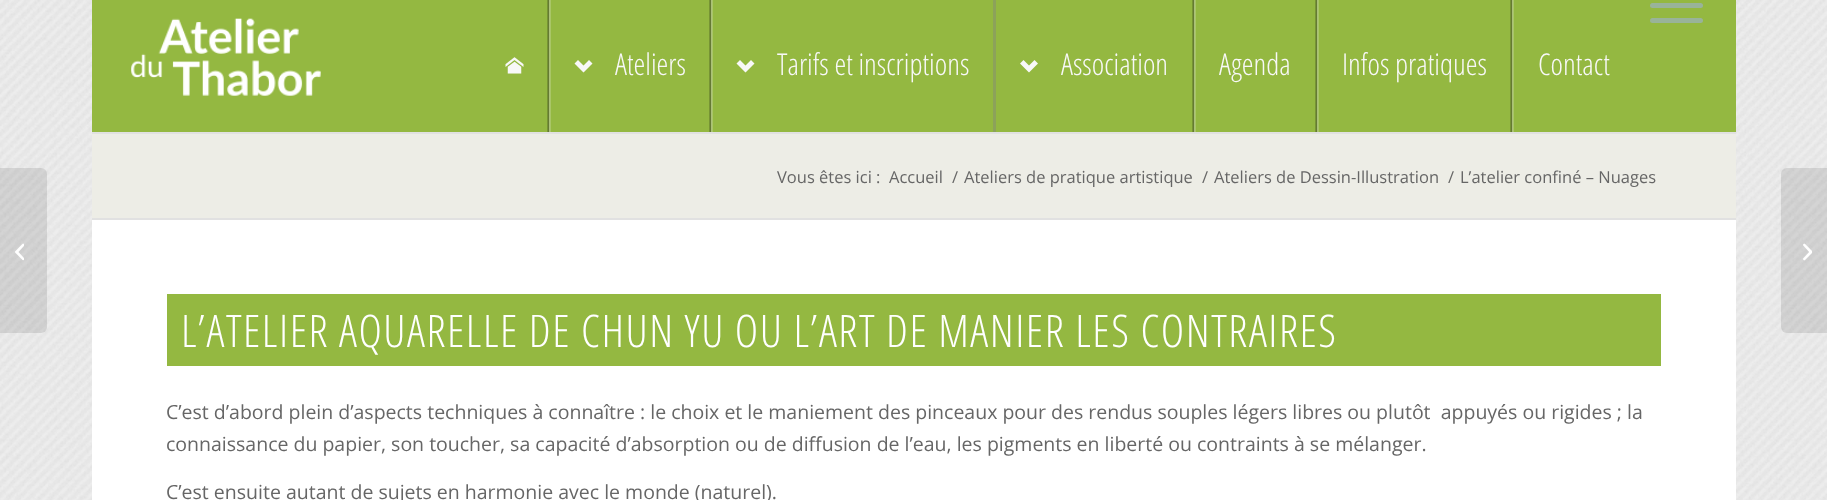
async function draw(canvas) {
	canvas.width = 1827;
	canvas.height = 500;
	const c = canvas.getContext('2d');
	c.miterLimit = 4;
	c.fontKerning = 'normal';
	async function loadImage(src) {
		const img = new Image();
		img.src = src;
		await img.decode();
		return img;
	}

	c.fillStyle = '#eee';
	c.fillRect(0, 0, 1827, 500);
	c.drawImage(await loadImage('img1.png'), 0, 0, 1827, 500);
	c.fillStyle = '#94b841';
	c.fillRect(92, 0, 1644, 132);
	c.fillStyle = '#e1e1e1';
	c.fillRect(92, 132, 1644, 2);
	c.drawImage(await loadImage('img2.png'), 131, 18, 190, 78);
	c.fillStyle = '#99b399';
	c.beginPath();
	c.roundRect(1650, 3, 53, 5, 2.5);
	c.fill();
	c.beginPath();
	c.roundRect(1650, 18, 53, 5, 2.5);
	c.fill();
	c.drawImage(await loadImage('img3.png'), 505, 57, 19, 17);
	c.drawImage(await loadImage('img4.png'), 547, 0, 4, 132);
	c.fillStyle = '#f8f8f8';
	c.beginPath();
	c.moveTo(592.5, 63.5);
	c.lineTo(589, 60);
	c.lineTo(583.5, 65.5);
	c.lineTo(578, 60);
	c.lineTo(574.5, 63.5);
	c.lineTo(583.5, 72.5);
	c.closePath();
	c.fill();
	c.font = '300 30px Open Sans Condensed';
	c.fillText('Ateliers', 615, 75);
	c.drawImage(await loadImage('img4.png'), 709, 0, 4, 132);
	c.beginPath();
	c.moveTo(754.5, 63.5);
	c.lineTo(751, 60);
	c.lineTo(745.5, 65.5);
	c.lineTo(740, 60);
	c.lineTo(736.5, 63.5);
	c.lineTo(745.5, 72.5);
	c.closePath();
	c.fill();
	c.fillText('Tarifs et inscriptions', 777, 75);
	c.fillStyle = '#8ca25a';
	c.fillRect(993, 0, 3, 132);
	c.fillStyle = '#f8f8f8';
	c.beginPath();
	c.moveTo(1038, 63.5);
	c.lineTo(1034.5, 60);
	c.lineTo(1029, 65.5);
	c.lineTo(1023.5, 60);
	c.lineTo(1020, 63.5);
	c.lineTo(1029, 72.5);
	c.closePath();
	c.fill();
	c.fillText('Association', 1061, 75);
	c.drawImage(await loadImage('img4.png'), 1192, 0, 4, 132);
	c.fillText('Agenda', 1219, 75);
	c.drawImage(await loadImage('img4.png'), 1315, 0, 4, 132);
	c.fillText('Infos pratiques', 1342, 75);
	c.drawImage(await loadImage('img4.png'), 1510, 0, 4, 132);
	c.fillText('Contact', 1538, 75);
	c.fillStyle = '#0000001a';
	c.beginPath();
	c.roundRect(0, 168, 47, 165, [0, 6, 6, 0]);
	c.fill();
	c.drawImage(await loadImage('img5.png'), 15, 243, 9, 18);
	c.fillStyle = '#edede6';
	c.fillRect(92, 134, 1644, 84);
	c.font = '16.5px Open Sans';
	c.fillStyle = '#666';
	for (const [text, x, y] of [
		['Vous êtes ici :', 777, 183],
		['Accueil', 889, 183],
		['/', 952, 183],
		['Ateliers de pratique artistique', 964, 183],
		['/', 1202, 183],
		['Ateliers de Dessin-Illustration', 1214, 183],
		['/', 1448, 183],
		['L’atelier confiné – Nuages', 1460, 183],
	]) {
		c.fillText(text, x, y);
	}
	for (const [x, y, w, h, color] of [
		[92, 220, 1644, 280, '#fff'],
		[92, 218, 1644, 2, '#e1e1e1'],
		[167, 294, 1494, 72, '#94b841'],
	]) {
		c.fillStyle = color;
		c.fillRect(x, y, w, h);
	}
	c.letterSpacing = '1.5px';
	c.font = '300 45px Open Sans Condensed';
	c.fillStyle = '#fff';
	c.fillText('L’ATELIER AQUARELLE DE CHUN YU OU L’ART DE MANIER LES CONTRAIRES', 181, 347);
	c.letterSpacing = '0px';
	c.font = '19.5px Open Sans';
	c.fillStyle = '#666';
	for (const [text, x, y] of [
		['C’est d’abord plein d’aspects techniques à connaître : le choix et le maniement des pinceaux pour des rendus souples légers libres ou plutôt  appuyés ou rigides ; la', 166, 419],
		['connaissance du papier, son toucher, sa capacité d’absorption ou de diffusion de l’eau, les pigments en liberté ou contraints à se mélanger.', 166, 451],
		['C’est ensuite autant de sujets en harmonie avec le monde (naturel).', 166, 499],
	]) {
		c.fillText(text, x, y);
	}
	c.fillStyle = '#0000001a';
	c.beginPath();
	c.roundRect(1781, 168, 46, 165, [6, 0, 0, 6]);
	c.fill();
	c.drawImage(await loadImage('img6.png'), 1803, 243, 9, 18);
}

draw(document.querySelector('canvas'));
